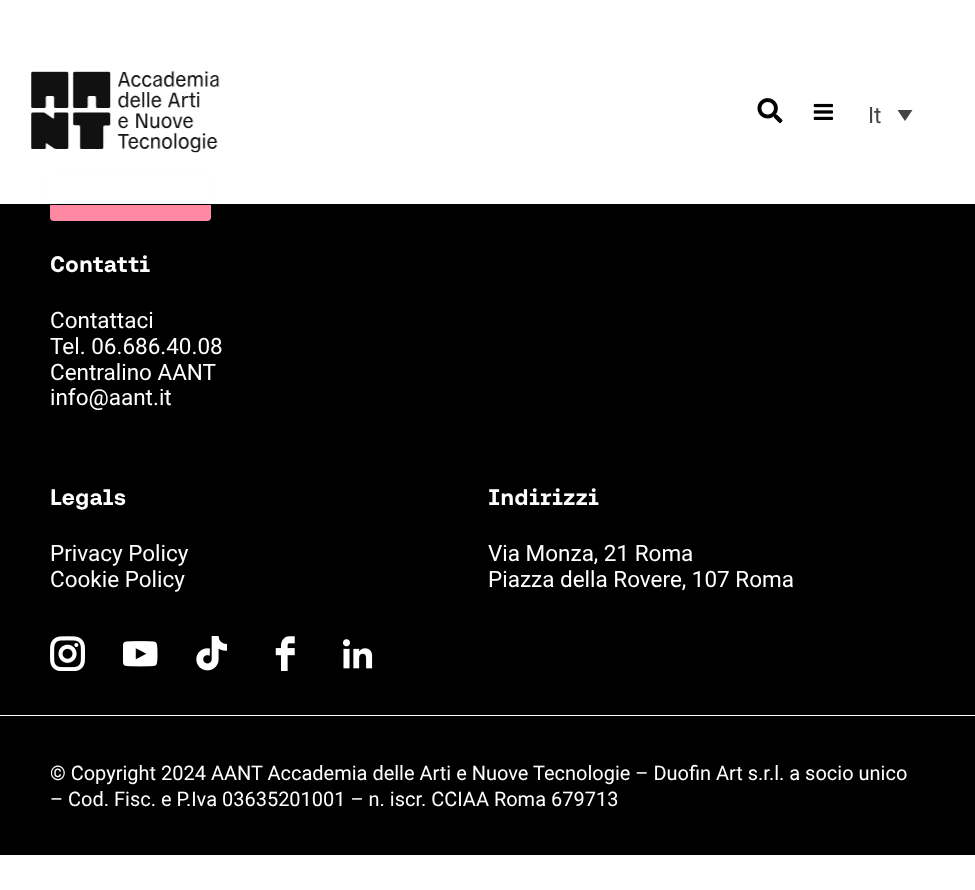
async function draw(canvas) {
	canvas.width = 975;
	canvas.height = 890;
	const c = canvas.getContext('2d');
	c.miterLimit = 4;
	c.fontKerning = 'normal';
	async function loadImage(src) {
		const img = new Image();
		img.src = src;
		await img.decode();
		return img;
	}

	c.fillStyle = '#fff';
	c.fillRect(0, 0, 975, 890);
	c.fillStyle = '#000';
	c.fillRect(0, 205, 975, 650);
	c.fillStyle = '#12196114';
	c.filter = 'blur(2.5px)';
	c.beginPath();
	c.roundRect(50, 175, 161, 48, 4);
	c.fill();
	c.filter = 'none';
	c.fillStyle = '#ff88a2';
	c.beginPath();
	c.roundRect(50, 174, 161, 47, 4);
	c.fill();
	c.fillStyle = '#fff';
	c.fillRect(47, 172, 167, 32);
	c.fillStyle = '#000';
	c.fillRect(0, 204, 975, 1);
	c.drawImage(await loadImage('img1.png'), 31, 71, 189, 82);
	c.drawImage(await loadImage('img2.png'), 757, 98, 26, 26);
	c.drawImage(await loadImage('img3.png'), 813, 103, 21, 17);
	c.font = '22.5px Roboto';
	c.fillStyle = '#444';
	c.fillText('It', 868, 123);
	c.beginPath();
	c.moveTo(897.5, 110);
	c.lineTo(912.5, 110);
	c.lineTo(905, 121);
	c.closePath();
	c.fill();
	c.font = 'bold 22.5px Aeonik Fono';
	c.fillStyle = '#fff';
	c.fillText('Contatti', 50, 272);
	c.font = '22.5px Roboto';
	for (const [text, x, y] of [
		['Contattaci', 50, 328],
		['Tel. 06.686.40.08', 50, 354],
		['Centralino AANT', 50, 380],
		['info@aant.it', 50, 405],
	]) {
		c.fillText(text, x, y);
	}
	c.font = 'bold 22.5px Aeonik Fono';
	c.fillText('Legals', 50, 505);
	c.font = '22.5px Roboto';
	c.fillText('Privacy Policy', 50, 561);
	c.fillText('Cookie Policy', 50, 587);
	c.font = 'bold 22.5px Aeonik Fono';
	c.fillText('Indirizzi', 488, 505);
	c.font = '22.5px Roboto';
	c.fillText('Via Monza, 21 Roma', 488, 561);
	c.fillText('Piazza della Rovere, 107 Roma', 488, 587);
	c.drawImage(await loadImage('img4.png'), 50, 636, 35, 35);
	c.drawImage(await loadImage('img5.png'), 123, 641, 35, 26);
	c.drawImage(await loadImage('img6.png'), 196, 636, 31, 35);
	c.drawImage(await loadImage('img7.png'), 275, 636, 20, 35);
	c.drawImage(await loadImage('img8.png'), 342, 639, 31, 30);
	c.fillRect(0, 715, 975, 1);
	c.font = '20px Roboto';
	c.fillText('© Copyright 2024 AANT Accademia delle Arti e Nuove Tecnologie – Duofin Art s.r.l. a socio unico', 50, 780);
	c.fillText('– Cod. Fisc. e P.Iva 03635201001 – n. iscr. CCIAA Roma 679713', 50, 806);
}

draw(document.querySelector('canvas'));
